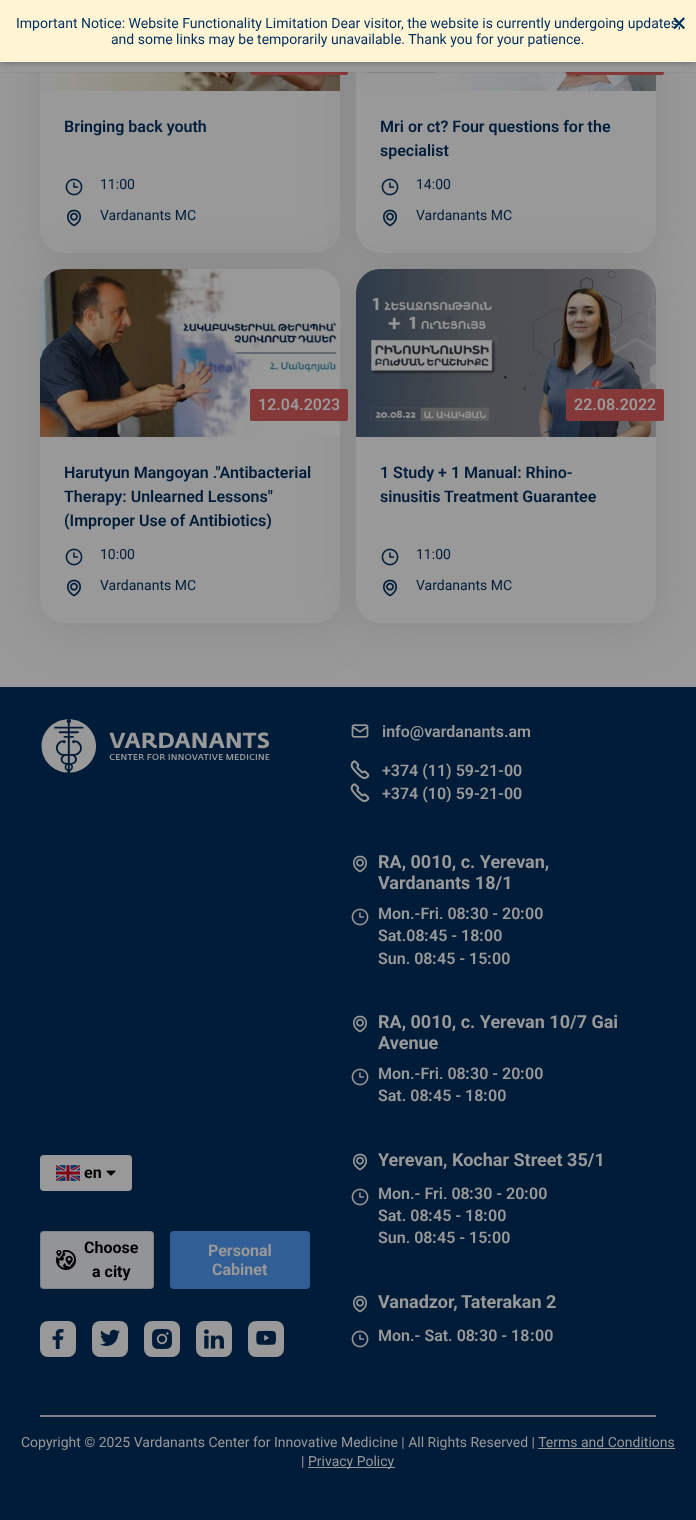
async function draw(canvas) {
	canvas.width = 696;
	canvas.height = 1520;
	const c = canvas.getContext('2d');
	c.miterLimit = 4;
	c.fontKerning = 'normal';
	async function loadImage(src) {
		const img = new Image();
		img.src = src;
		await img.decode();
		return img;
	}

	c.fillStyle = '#999';
	c.fillRect(0, 0, 696, 1520);
	c.fillStyle = '#5f5f5f4a';
	c.filter = 'blur(24.5px)';
	c.beginPath();
	c.roundRect(40, -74, 300, 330, 24);
	c.fill();
	c.filter = 'none';
	c.fillStyle = '#999';
	c.beginPath();
	c.roundRect(40, -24, 300, 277, 24);
	c.fill();
	c.fillStyle = '#5f5f5f4a';
	c.filter = 'blur(24.5px)';
	c.beginPath();
	c.roundRect(356, -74, 300, 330, 24);
	c.fill();
	c.filter = 'none';
	c.drawImage(await loadImage('img1.png'), 40, 72, 300, 19);
	c.fillStyle = '#853838';
	c.beginPath();
	c.roundRect(250, 43, 98, 32, 2);
	c.fill();
	c.fillStyle = '#999';
	c.beginPath();
	c.roundRect(356, -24, 300, 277, 24);
	c.fill();
	c.drawImage(await loadImage('img4.png'), 359, 72, 297, 19);
	c.fillStyle = '#853838';
	c.beginPath();
	c.roundRect(566, 43, 98, 32, 2);
	c.fill();
	c.fillStyle = '#999';
	c.fillRect(15, 62, 666, 10);
	c.fillStyle = '#00000033';
	c.filter = 'blur(2px)';
	c.beginPath();
	c.rect(0, 2, 696, 62);
	c.fill();
	c.filter = 'none';
	c.fillStyle = '#fff5d5';
	c.fillRect(0, 0, 696, 62);
	c.font = '14px Roboto';
	c.fillStyle = '#002f5f';
	c.fillText('Important Notice: Website Functionality Limitation Dear visitor, the website is currently undergoing updates,', 16, 28);
	c.fillText('and some links may be temporarily unavailable. Thank you for your patience.', 111, 44);
	c.font = '27px Roboto';
	c.fillText('×', 672, 32);
	c.fillStyle = '#00000008';
	c.fillRect(0, 72, 696, 1);
	c.font = '600 16px Roboto';
	c.fillStyle = '#001c39';
	c.fillText('Bringing back youth', 64, 132);
	c.drawImage(await loadImage('img2.png'), 65, 178, 18, 18);
	c.font = '14px Roboto';
	c.fillText('11:00', 100, 189);
	c.fillStyle = '#5f5f5f4a';
	c.filter = 'blur(24.5px)';
	c.beginPath();
	c.roundRect(40, 272, 300, 354, 24);
	c.fill();
	c.filter = 'none';
	c.drawImage(await loadImage('img3.png'), 67, 209, 14, 18);
	c.fillStyle = '#001c39';
	c.fillText('Vardanants MC', 100, 220);
	c.font = '600 16px Roboto';
	c.fillText('Mri or ct? Four questions for the', 380, 132);
	c.fillText('specialist', 380, 156);
	c.drawImage(await loadImage('img2.png'), 381, 178, 18, 18);
	c.font = '14px Roboto';
	c.fillText('14:00', 416, 189);
	c.fillStyle = '#999';
	c.beginPath();
	c.roundRect(40, 269, 300, 354, 24);
	c.fill();
	c.fillStyle = '#5f5f5f4a';
	c.filter = 'blur(24.5px)';
	c.beginPath();
	c.roundRect(356, 272, 300, 354, 24);
	c.fill();
	c.filter = 'none';
	c.drawImage(await loadImage('img3.png'), 383, 209, 14, 18);
	c.fillStyle = '#001c39';
	c.fillText('Vardanants MC', 416, 220);
	c.drawImage(await loadImage('img5.png'), 40, 269, 300, 168);
	c.fillStyle = '#853838';
	c.beginPath();
	c.roundRect(250, 389, 98, 32, 2);
	c.fill();
	c.font = '600 16px Roboto';
	c.fillStyle = '#999';
	c.fillText('12.04.2023', 258, 410);
	c.fillStyle = '#001c39';
	for (const [text, x, y] of [
		['Harutyun Mangoyan ."Antibacterial', 64, 478],
		['Therapy: Unlearned Lessons"', 64, 502],
		['(Improper Use of Antibiotics)', 64, 526],
	]) {
		c.fillText(text, x, y);
	}
	c.drawImage(await loadImage('img2.png'), 65, 548, 18, 18);
	c.font = '14px Roboto';
	c.fillText('10:00', 100, 559);
	c.drawImage(await loadImage('img6.png'), 67, 579, 14, 18);
	c.fillText('Vardanants MC', 100, 590);
	c.fillStyle = '#999';
	c.beginPath();
	c.roundRect(356, 269, 300, 354, 24);
	c.fill();
	c.drawImage(await loadImage('img7.png'), 356, 269, 300, 168);
	c.fillStyle = '#853838';
	c.beginPath();
	c.roundRect(566, 389, 98, 32, 2);
	c.fill();
	c.font = '600 16px Roboto';
	c.fillStyle = '#999';
	c.fillText('22.08.2022', 574, 410);
	c.fillStyle = '#001c39';
	c.fillText('1 Study + 1 Manual: Rhino-', 380, 478);
	c.fillText('sinusitis Treatment Guarantee', 380, 502);
	c.drawImage(await loadImage('img2.png'), 381, 548, 18, 18);
	c.font = '14px Roboto';
	c.fillText('11:00', 416, 559);
	c.drawImage(await loadImage('img6.png'), 383, 579, 14, 18);
	c.fillText('Vardanants MC', 416, 590);
	c.fillRect(0, 687, 696, 833);
	c.drawImage(await loadImage('img8.png'), 41, 719, 229, 54);
	c.fillStyle = '#999';
	c.beginPath();
	c.roundRect(40, 1155, 92, 36, 4);
	c.fill();
	c.drawImage(await loadImage('img9.png'), 56, 1165, 24, 16);
	c.font = 'bold 16px Roboto';
	c.fillStyle = '#000';
	c.fillText('en', 84, 1178);
	c.drawImage(await loadImage('img10.png'), 106, 1170, 10, 6);
	c.fillStyle = '#939497';
	c.beginPath();
	c.roundRect(40, 1231, 114, 58, 4);
	c.fill();
	c.beginPath();
	c.roundRect(40.5, 1231.5, 113, 57, 3.5);
	c.strokeStyle = '#0000001f';
	c.stroke();
	c.drawImage(await loadImage('img11.png'), 56, 1250, 20, 20);
	c.fillStyle = '#000';
	c.fillText('Choose', 84, 1253);
	c.fillText('a city', 92, 1277);
	c.fillStyle = '#315e95';
	c.beginPath();
	c.roundRect(171, 1232, 138, 56, 3);
	c.fill();
	c.strokeStyle = '#315e95';
	c.lineWidth = 2;
	c.stroke();
	c.fillStyle = '#999';
	c.fillText('Personal', 208, 1256);
	c.fillText('Cabinet', 212, 1275);
	c.beginPath();
	c.roundRect(40, 1321, 36, 36, 8);
	c.fill();
	c.drawImage(await loadImage('img12.png'), 52, 1329, 12, 20);
	c.beginPath();
	c.roundRect(92, 1321, 36, 36, 8);
	c.fill();
	c.drawImage(await loadImage('img13.png'), 100, 1329, 20, 17);
	c.beginPath();
	c.roundRect(144, 1321, 36, 36, 8);
	c.fill();
	c.drawImage(await loadImage('img14.png'), 152, 1329, 20, 20);
	c.beginPath();
	c.roundRect(196, 1321, 36, 36, 8);
	c.fill();
	c.drawImage(await loadImage('img15.png'), 204, 1329, 20, 20);
	c.beginPath();
	c.roundRect(248, 1321, 36, 36, 8);
	c.fill();
	c.drawImage(await loadImage('img16.png'), 256, 1330, 20, 15);
	c.drawImage(await loadImage('img17.png'), 351, 724, 18, 14);
	c.font = '600 16px Roboto';
	c.fillText('info@vardanants.am', 382, 737);
	c.drawImage(await loadImage('img18.png'), 350, 760, 20, 19);
	c.fillText('+374 (11) 59-21-00', 382, 776);
	c.drawImage(await loadImage('img18.png'), 350, 783, 20, 19);
	c.fillText('+374 (10) 59-21-00', 382, 799);
	c.drawImage(await loadImage('img19.png'), 353, 855, 14, 18);
	c.font = 'bold 18px Roboto';
	c.fillText('RA, 0010, c. Yerevan,', 378, 868);
	c.fillText('Vardanants 18/1', 378, 889);
	c.drawImage(await loadImage('img20.png'), 351, 908, 18, 18);
	c.font = '600 16px Roboto';
	c.fillText('Mon.-Fri. 08', 378, 919);
	c.font = 'bold 16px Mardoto';
	c.fillText('։', 465, 919);
	c.font = '600 16px Roboto';
	c.fillText('30 - 20', 470, 919);
	c.font = 'bold 16px Mardoto';
	c.fillText('։', 520, 919);
	c.font = '600 16px Roboto';
	c.fillText('00', 525, 919);
	c.fillText('Sat.08', 378, 941);
	c.font = 'bold 16px Mardoto';
	c.fillText('։', 424, 941);
	c.font = '600 16px Roboto';
	c.fillText('45 - 18', 429, 941);
	c.font = 'bold 16px Mardoto';
	c.fillText('։', 479, 941);
	c.font = '600 16px Roboto';
	c.fillText('00', 484, 941);
	c.fillText('Sun. 08', 378, 964);
	c.font = 'bold 16px Mardoto';
	c.fillText('։', 432, 964);
	c.font = '600 16px Roboto';
	c.fillText('45 - 15', 437, 964);
	c.font = 'bold 16px Mardoto';
	c.fillText('։', 487, 964);
	c.font = '600 16px Roboto';
	c.fillText('00', 492, 964);
	c.drawImage(await loadImage('img19.png'), 353, 1015, 14, 18);
	c.font = 'bold 18px Roboto';
	c.fillText('RA, 0010, c. Yerevan 10/7 Gai', 378, 1028);
	c.fillText('Avenue', 378, 1049);
	c.drawImage(await loadImage('img20.png'), 351, 1068, 18, 18);
	c.font = '600 16px Roboto';
	c.fillText('Mon.-Fri. 08', 378, 1079);
	c.font = 'bold 16px Mardoto';
	c.fillText('։', 465, 1079);
	c.font = '600 16px Roboto';
	c.fillText('30 - 20', 470, 1079);
	c.font = 'bold 16px Mardoto';
	c.fillText('։', 520, 1079);
	c.font = '600 16px Roboto';
	c.fillText('00', 525, 1079);
	c.fillText('Sat. 08', 378, 1101);
	c.font = 'bold 16px Mardoto';
	c.fillText('։', 428, 1101);
	c.font = '600 16px Roboto';
	c.fillText('45 - 18', 433, 1101);
	c.font = 'bold 16px Mardoto';
	c.fillText('։', 483, 1101);
	c.font = '600 16px Roboto';
	c.fillText('00', 488, 1101);
	c.drawImage(await loadImage('img19.png'), 353, 1153, 14, 18);
	c.font = 'bold 18px Roboto';
	c.fillText('Yerevan, Kochar Street 35/1', 378, 1166);
	c.drawImage(await loadImage('img20.png'), 351, 1188, 18, 18);
	c.font = '600 16px Roboto';
	c.fillText('Mon.- Fri. 08', 378, 1199);
	c.font = 'bold 16px Mardoto';
	c.fillText('։', 469, 1199);
	c.font = '600 16px Roboto';
	c.fillText('30 - 20', 474, 1199);
	c.font = 'bold 16px Mardoto';
	c.fillText('։', 524, 1199);
	c.font = '600 16px Roboto';
	c.fillText('00', 529, 1199);
	c.fillText('Sat. 08', 378, 1221);
	c.font = 'bold 16px Mardoto';
	c.fillText('։', 428, 1221);
	c.font = '600 16px Roboto';
	c.fillText('45 - 18', 433, 1221);
	c.font = 'bold 16px Mardoto';
	c.fillText('։', 483, 1221);
	c.font = '600 16px Roboto';
	c.fillText('00', 488, 1221);
	c.fillText('Sun. 08', 378, 1243);
	c.font = 'bold 16px Mardoto';
	c.fillText('։', 432, 1243);
	c.font = '600 16px Roboto';
	c.fillText('45 - 15', 437, 1243);
	c.font = 'bold 16px Mardoto';
	c.fillText('։', 487, 1243);
	c.font = '600 16px Roboto';
	c.fillText('00', 492, 1243);
	c.drawImage(await loadImage('img19.png'), 353, 1295, 14, 18);
	c.font = 'bold 18px Roboto';
	c.fillText('Vanadzor,', 378, 1308);
	c.fillText('Taterakan 2', 461, 1308);
	c.drawImage(await loadImage('img20.png'), 351, 1330, 18, 18);
	c.font = '600 16px Roboto';
	c.fillText('Mon.- Sat. 08', 378, 1341);
	c.font = 'bold 16px Mardoto';
	c.fillText('։', 474, 1341);
	c.font = '600 16px Roboto';
	c.fillText('30 - 18', 479, 1341);
	c.font = 'bold 16px Mardoto';
	c.fillText('։', 530, 1341);
	c.font = '600 16px Roboto';
	c.fillText('00', 535, 1341);
	c.fillStyle = '#7f7e88';
	c.fillRect(40, 1415, 616, 2);
	c.font = '14px Roboto';
	c.fillStyle = '#999';
	c.fillText('Copyright © 2025 Vardanants Center for Innovative Medicine | All Rights Reserved | Terms and Conditions', 21, 1447);
	c.fillRect(538, 1448, 137, 1);
	c.fillText('|', 301, 1466);
	c.fillRect(308, 1467, 87, 1);
	c.fillText('Privacy Policy', 308, 1466);
}

draw(document.querySelector('canvas'));
